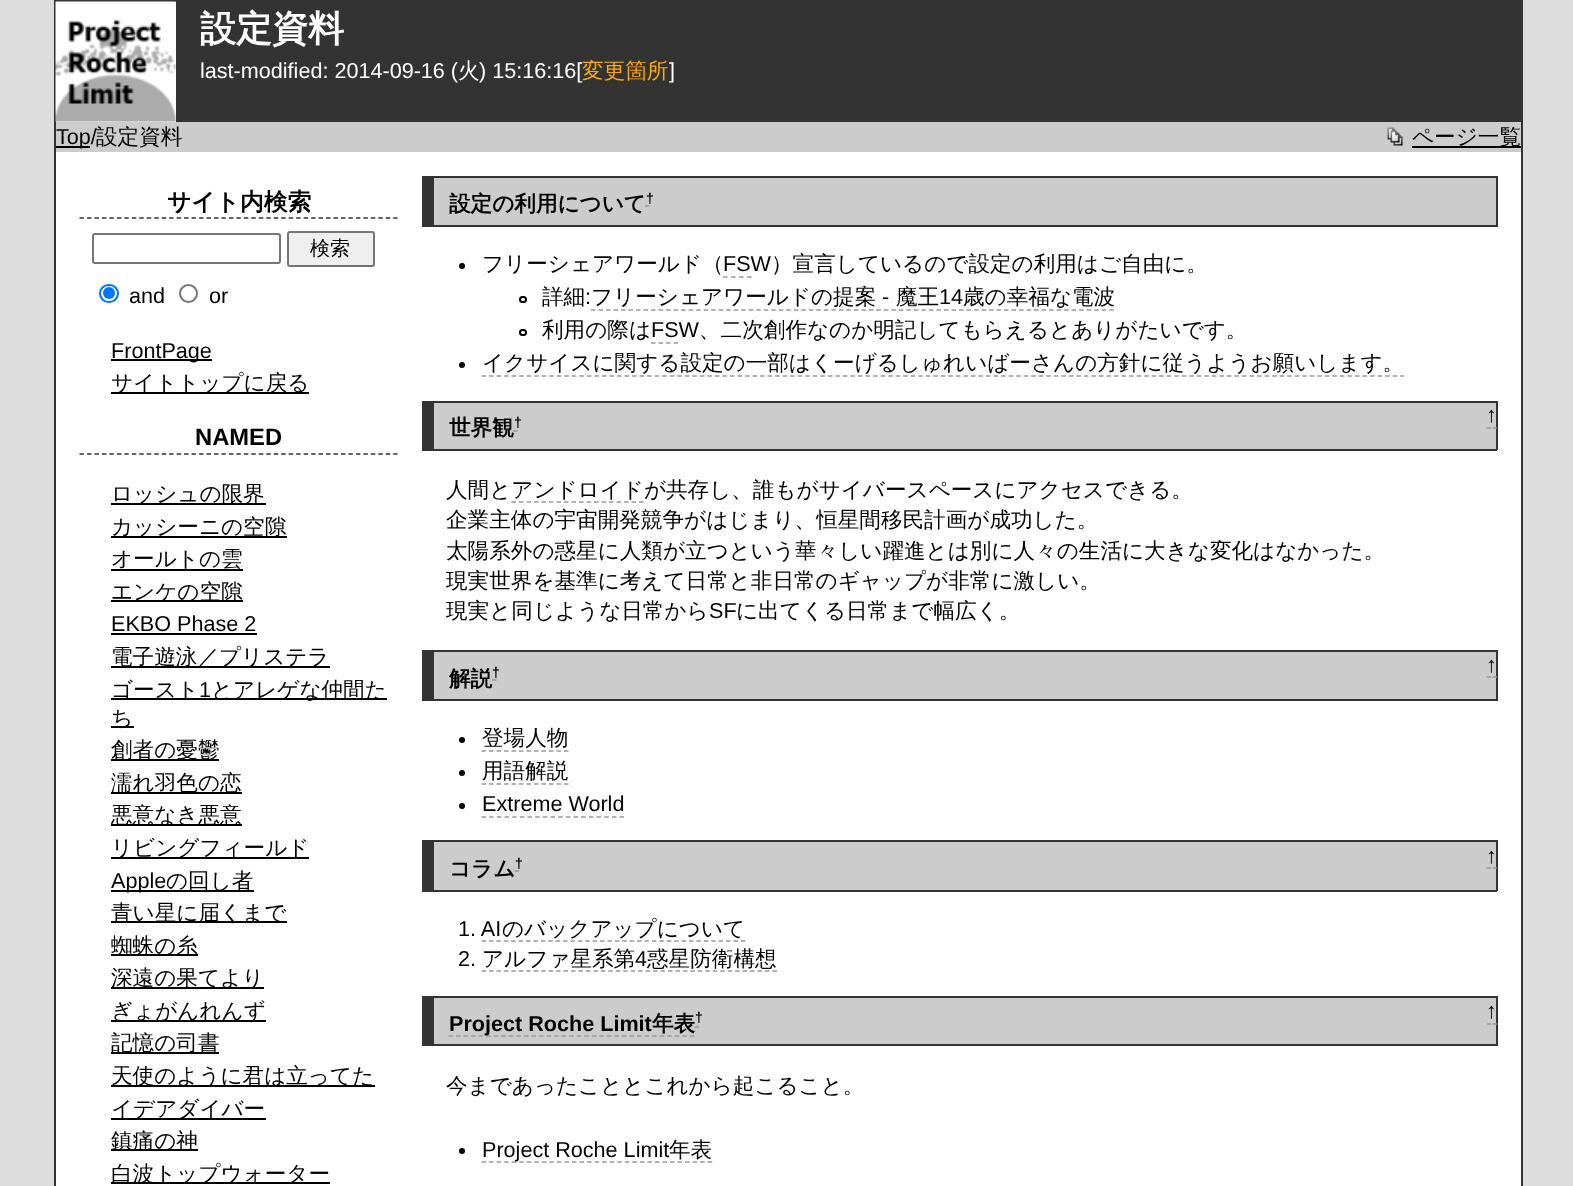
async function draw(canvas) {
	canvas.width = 1573;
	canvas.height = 1186;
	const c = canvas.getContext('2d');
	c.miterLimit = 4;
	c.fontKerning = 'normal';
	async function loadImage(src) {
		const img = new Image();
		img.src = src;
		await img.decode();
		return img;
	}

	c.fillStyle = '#ddd';
	c.fillRect(0, 0, 1573, 1186);
	c.fillStyle = '#fff';
	c.fillRect(56, 152, 1465, 1034);
	c.strokeStyle = '#333';
	c.lineWidth = 2;
	c.strokeRect(55, 1, 1467, 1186);
	c.fillStyle = '#333';
	c.fillRect(176, 2, 1345, 120);
	c.fillStyle = '#fff';
	c.fillRect(56, 2, 120, 120);
	c.drawImage(await loadImage('img1.png'), 55, 1, 121, 121);
	c.font = 'bold 36px WenQuanYi Zen Hei';
	c.fillText('設定資料', 200, 41);
	c.font = '21.6px Liberation Sans';
	c.fillText('last-modified: 2014-09-16 (', 200, 78);
	c.font = '500 21.6px WenQuanYi Zen Hei';
	c.fillText('火', 458, 78);
	c.font = '21.6px Liberation Sans';
	c.fillText(') 15:16:16[', 479, 78);
	c.font = '500 21.6px WenQuanYi Zen Hei';
	c.fillStyle = '#fa0';
	c.fillText('変更箇所', 582, 78);
	c.font = '21.6px Liberation Sans';
	c.fillStyle = '#fff';
	c.fillText(']', 669, 78);
	c.fillStyle = '#ccc';
	c.fillRect(56, 122, 1465, 30);
	c.fillStyle = '#000';
	c.fillRect(56, 146, 34, 2);
	c.fillText('Top/', 56, 144);
	c.font = '500 21.6px WenQuanYi Zen Hei';
	c.fillText('設定資料', 96, 144);
	c.drawImage(await loadImage('img2.png'), 1387, 127, 16, 19);
	c.fillRect(1412, 146, 109, 2);
	c.fillText('ページ一覧', 1412, 144);
	c.beginPath();
	c.moveTo(79.5, 218);
	c.lineTo(397.5, 218);
	c.lineWidth = 1.5;
	c.setLineDash([4.5, 2.97]);
	c.stroke();
	c.font = 'bold 23.75px WenQuanYi Zen Hei';
	c.fillText('サイト内検索', 167, 210);
	c.beginPath();
	c.roundRect(93, 234, 187, 29, 2);
	c.strokeStyle = '#767676';
	c.lineWidth = 2;
	c.setLineDash([]);
	c.stroke();
	c.fillStyle = '#efefef';
	c.beginPath();
	c.roundRect(288, 232, 86, 34, 2);
	c.fill();
	c.stroke();
	c.font = '500 20px WenQuanYi Zen Hei';
	c.fillStyle = '#000';
	c.fillText('検索', 310, 255);
	c.beginPath();
	c.roundRect(100, 285, 18, 17, 8.5);
	c.strokeStyle = '#0075ff';
	c.stroke();
	c.fillStyle = '#0075ff';
	c.beginPath();
	c.arc(109, 293, 6, 0, 2 * Math.PI);
	c.fill();
	c.font = '21.6px Liberation Sans';
	c.fillStyle = '#000';
	c.fillText('and', 129, 303);
	c.beginPath();
	c.arc(188.5, 293.5, 8.5, 0, 2 * Math.PI);
	c.strokeStyle = '#767676';
	c.stroke();
	c.fillText('or', 209, 303);
	c.fillRect(111, 359, 101, 2);
	c.fillText('FrontPage', 111, 358);
	c.fillRect(111, 392, 198, 2);
	c.font = '500 21.6px WenQuanYi Zen Hei';
	c.fillText('サイトトップに戻る', 111, 390);
	c.beginPath();
	c.moveTo(79.5, 454);
	c.lineTo(397.5, 454);
	c.strokeStyle = '#333';
	c.lineWidth = 1.5;
	c.setLineDash([4.5, 2.97]);
	c.stroke();
	c.font = 'bold 23.75px Liberation Sans';
	c.fillText('NAMED', 195, 445);
	c.fillRect(111, 503, 155, 2);
	c.font = '500 21.6px WenQuanYi Zen Hei';
	c.fillText('ロッシュの限界', 111, 501);
	c.fillRect(111, 536, 176, 2);
	c.fillText('カッシーニの空隙', 111, 534);
	c.fillRect(111, 569, 132, 2);
	c.fillText('オールトの雲', 111, 566);
	c.fillRect(111, 600, 132, 2);
	c.fillText('エンケの空隙', 111, 599);
	c.font = '21.6px Liberation Sans';
	c.fillText('EKBO Phase 2', 111, 631);
	c.fillRect(111, 633, 146, 2);
	c.fillRect(111, 666, 219, 2);
	c.font = '500 21.6px WenQuanYi Zen Hei';
	c.fillText('電子遊泳／プリステラ', 111, 664);
	c.fillRect(111, 698, 276, 2);
	c.fillText('ゴースト', 111, 697);
	c.font = '21.6px Liberation Sans';
	c.fillText('1', 199, 697);
	c.font = '500 21.6px WenQuanYi Zen Hei';
	c.fillText('とアレゲな仲間た', 211, 697);
	c.fillRect(111, 726, 23, 2);
	c.fillText('ち', 111, 725);
	c.fillRect(111, 759, 108, 2);
	c.fillText('創者の憂鬱', 111, 757);
	c.fillRect(111, 792, 131, 2);
	c.fillText('濡れ羽色の恋', 111, 790);
	c.fillRect(111, 824, 131, 2);
	c.fillText('悪意なき悪意', 111, 822);
	c.fillRect(111, 857, 198, 2);
	c.fillText('リビングフィールド', 111, 855);
	c.fillRect(111, 890, 143, 2);
	c.font = '21.6px Liberation Sans';
	c.fillText('Apple', 111, 888);
	c.font = '500 21.6px WenQuanYi Zen Hei';
	c.fillText('の回し者', 166, 888);
	c.fillRect(111, 921, 176, 2);
	c.fillText('青い星に届くまで', 111, 920);
	c.fillRect(111, 954, 87, 2);
	c.fillText('蜘蛛の糸', 111, 953);
	c.fillRect(111, 987, 153, 2);
	c.fillText('深遠の果てより', 111, 985);
	c.fillRect(111, 1020, 155, 2);
	c.fillText('ぎょがんれんず', 111, 1018);
	c.fillRect(111, 1052, 108, 2);
	c.fillText('記憶の司書', 111, 1050);
	c.fillRect(111, 1085, 264, 2);
	c.fillText('天使のように君は立ってた', 111, 1083);
	c.fillRect(111, 1118, 155, 2);
	c.fillText('イデアダイバー', 111, 1116);
	c.fillRect(111, 1149, 87, 2);
	c.fillText('鎮痛の神', 111, 1148);
	c.fillRect(111, 1182, 219, 2);
	c.fillText('白波トップウォーター', 111, 1181);
	for (const [x, y, w, h, color] of [
		[434, 178, 1062, 47, '#ccc'],
		[434, 176, 1063, 2, '#333'],
		[1496, 176, 2, 51, '#333'],
		[434, 225, 1063, 2, '#333'],
		[422, 176, 12, 51, '#333'],
	]) {
		c.fillStyle = color;
		c.fillRect(x, y, w, h);
	}
	c.font = 'bold 21.6px WenQuanYi Zen Hei';
	c.fillStyle = '#000';
	c.fillText('設定の利用について', 449, 211);
	c.font = 'bold 14px Liberation Sans';
	c.fillText('†', 646, 203);
	c.beginPath();
	c.moveTo(645, 206);
	c.lineTo(649.5, 206);
	c.strokeStyle = '#999';
	c.setLineDash([]);
	c.stroke();
	c.beginPath();
	c.arc(462, 266, 3, 0, 2 * Math.PI);
	c.fill();
	c.font = '500 21.6px WenQuanYi Zen Hei';
	c.fillText('フリーシェアワールド（', 482, 271);
	c.font = '21.6px Liberation Sans';
	c.fillText('FSW', 723, 271);
	c.beginPath();
	c.moveTo(723, 277);
	c.lineTo(751.5, 277);
	c.setLineDash([4.5, 3.5]);
	c.stroke();
	c.font = '500 21.6px WenQuanYi Zen Hei';
	c.fillText('）宣言しているので設定の利用はご自由に。', 771, 271);
	c.beginPath();
	c.roundRect(520, 297, 6, 5, 2.5);
	c.strokeStyle = '#000';
	c.lineWidth = 2;
	c.setLineDash([]);
	c.stroke();
	c.fillText('詳細', 542, 304);
	c.font = '21.6px Liberation Sans';
	c.fillText(':', 585, 304);
	c.font = '500 21.6px WenQuanYi Zen Hei';
	c.fillText('フリーシェアワールドの提案', 591, 304);
	c.font = '21.6px Liberation Sans';
	c.fillText('-', 882, 304);
	c.beginPath();
	c.moveTo(591, 310);
	c.lineTo(1114.5, 310);
	c.strokeStyle = '#999';
	c.lineWidth = 1.5;
	c.setLineDash([4.5, 3.01]);
	c.stroke();
	c.font = '500 21.6px WenQuanYi Zen Hei';
	c.fillText('魔王', 896, 304);
	c.font = '21.6px Liberation Sans';
	c.fillText('14', 939, 304);
	c.font = '500 21.6px WenQuanYi Zen Hei';
	c.fillText('歳の幸福な電波', 963, 304);
	c.beginPath();
	c.roundRect(520, 330, 6, 5, 2.5);
	c.strokeStyle = '#000';
	c.lineWidth = 2;
	c.setLineDash([]);
	c.stroke();
	c.fillText('利用の際は', 542, 337);
	c.font = '21.6px Liberation Sans';
	c.fillText('FSW', 651, 337);
	c.beginPath();
	c.moveTo(651, 343);
	c.lineTo(678, 343);
	c.strokeStyle = '#999';
	c.lineWidth = 1.5;
	c.setLineDash([4.5, 3]);
	c.stroke();
	c.font = '500 21.6px WenQuanYi Zen Hei';
	c.fillText('、二次創作なのか明記してもらえるとありがたいです。', 699, 337);
	c.beginPath();
	c.arc(462, 365, 3, 0, 2 * Math.PI);
	c.fill();
	c.fillText('イクサイスに関する設定の一部はくーげるしゅれいばーさんの方針に従うようお願いします。', 482, 370);
	c.beginPath();
	c.moveTo(481.5, 376);
	c.lineTo(1404, 376);
	c.setLineDash([4.5, 3.03]);
	c.stroke();
	for (const [x, y, w, h, color] of [
		[434, 403, 1062, 46, '#ccc'],
		[434, 401, 1063, 2, '#333'],
		[1496, 401, 2, 49, '#333'],
		[422, 449, 1075, 2, '#333'],
		[422, 401, 12, 48, '#333'],
	]) {
		c.fillStyle = color;
		c.fillRect(x, y, w, h);
	}
	c.font = 'bold 21.6px WenQuanYi Zen Hei';
	c.fillStyle = '#000';
	c.fillText('世界観', 449, 435);
	c.font = 'bold 14px Liberation Sans';
	c.fillText('†', 514, 427);
	c.beginPath();
	c.moveTo(513, 431);
	c.lineTo(517.5, 431);
	c.setLineDash([]);
	c.stroke();
	c.font = '21.6px Liberation Sans';
	c.fillText('↑', 1486, 422);
	c.beginPath();
	c.moveTo(1486.5, 428);
	c.lineTo(1491, 428);
	c.moveTo(1492.5, 428);
	c.lineTo(1497, 428);
	c.stroke();
	c.font = '500 21.6px WenQuanYi Zen Hei';
	c.fillText('人間とアンドロイドが共存し、誰もがサイバースペースにアクセスできる。', 446, 497);
	c.beginPath();
	c.moveTo(511.5, 502);
	c.lineTo(643.5, 502);
	c.setLineDash([4.5, 3]);
	c.stroke();
	for (const [text, x, y] of [
		['企業主体の宇宙開発競争がはじまり、恒星間移民計画が成功した。', 446, 527],
		['太陽系外の惑星に人類が立つという華々しい躍進とは別に人々の生活に大きな変化はなかった。', 446, 558],
		['現実世界を基準に考えて日常と非日常のギャップが非常に激しい。', 446, 588],
		['現実と同じような日常から', 446, 618],
	]) {
		c.fillText(text, x, y);
	}
	c.font = '21.6px Liberation Sans';
	c.fillText('SF', 709, 618);
	c.font = '500 21.6px WenQuanYi Zen Hei';
	c.fillText('に出てくる日常まで幅広く。', 736, 618);
	for (const [x, y, w, h, color] of [
		[434, 652, 1062, 47, '#ccc'],
		[434, 650, 1063, 2, '#333'],
		[1496, 650, 2, 51, '#333'],
		[434, 699, 1063, 2, '#333'],
		[422, 650, 12, 51, '#333'],
	]) {
		c.fillStyle = color;
		c.fillRect(x, y, w, h);
	}
	c.font = 'bold 21.6px WenQuanYi Zen Hei';
	c.fillStyle = '#000';
	c.fillText('解説', 449, 686);
	c.font = 'bold 14px Liberation Sans';
	c.fillText('†', 492, 677);
	c.beginPath();
	c.moveTo(492, 680);
	c.lineTo(496.5, 680);
	c.setLineDash([]);
	c.stroke();
	c.font = '21.6px Liberation Sans';
	c.fillText('↑', 1486, 672);
	c.beginPath();
	c.moveTo(1486.5, 677);
	c.lineTo(1491, 677);
	c.moveTo(1492.5, 677);
	c.lineTo(1497, 677);
	c.stroke();
	c.beginPath();
	c.arc(462, 740, 3, 0, 2 * Math.PI);
	c.fill();
	c.font = '500 21.6px WenQuanYi Zen Hei';
	c.fillText('登場人物', 482, 745);
	c.beginPath();
	c.moveTo(481.5, 751);
	c.lineTo(568.5, 751);
	c.setLineDash([4.5, 3]);
	c.stroke();
	c.beginPath();
	c.arc(462, 773, 3, 0, 2 * Math.PI);
	c.fill();
	c.fillText('用語解説', 482, 778);
	c.beginPath();
	c.moveTo(481.5, 784);
	c.lineTo(568.5, 784);
	c.stroke();
	c.beginPath();
	c.arc(462, 806, 3, 0, 2 * Math.PI);
	c.fill();
	c.font = '21.6px Liberation Sans';
	c.fillText('Extreme World', 482, 811);
	c.beginPath();
	c.moveTo(481.5, 817);
	c.lineTo(624, 817);
	c.setLineDash([4.5, 3.17]);
	c.stroke();
	for (const [x, y, w, h, color] of [
		[434, 842, 1062, 48, '#ccc'],
		[434, 840, 1063, 2, '#333'],
		[1496, 840, 2, 51, '#333'],
		[422, 890, 1075, 2, '#333'],
		[422, 840, 12, 50, '#333'],
	]) {
		c.fillStyle = color;
		c.fillRect(x, y, w, h);
	}
	c.font = 'bold 21.6px WenQuanYi Zen Hei';
	c.fillStyle = '#000';
	c.fillText('コラム', 449, 876);
	c.font = 'bold 14px Liberation Sans';
	c.fillText('†', 515, 868);
	c.beginPath();
	c.moveTo(514.5, 871);
	c.lineTo(519, 871);
	c.setLineDash([]);
	c.stroke();
	c.font = '21.6px Liberation Sans';
	c.fillText('↑', 1486, 863);
	c.beginPath();
	c.moveTo(1486.5, 868);
	c.lineTo(1491, 868);
	c.moveTo(1492.5, 868);
	c.lineTo(1497, 868);
	c.stroke();
	c.fillText('1. AI', 458, 936);
	c.font = '500 21.6px WenQuanYi Zen Hei';
	c.fillText('のバックアップについて', 502, 936);
	c.beginPath();
	c.moveTo(481.5, 941);
	c.lineTo(745.5, 941);
	c.setLineDash([4.5, 2.91]);
	c.stroke();
	c.font = '21.6px Liberation Sans';
	c.fillText('2.', 458, 966);
	c.font = '500 21.6px WenQuanYi Zen Hei';
	c.fillText('アルファ星系第', 482, 966);
	c.beginPath();
	c.moveTo(481.5, 971);
	c.lineTo(777, 971);
	c.setLineDash([4.5, 2.96]);
	c.stroke();
	c.font = '21.6px Liberation Sans';
	c.fillText('4', 635, 966);
	c.font = '500 21.6px WenQuanYi Zen Hei';
	c.fillText('惑星防衛構想', 647, 966);
	for (const [x, y, w, h, color] of [
		[434, 998, 1062, 46, '#ccc'],
		[434, 996, 1063, 2, '#333'],
		[1496, 996, 2, 50, '#333'],
		[434, 1044, 1063, 2, '#333'],
		[422, 996, 12, 50, '#333'],
	]) {
		c.fillStyle = color;
		c.fillRect(x, y, w, h);
	}
	c.beginPath();
	c.moveTo(448.5, 1036);
	c.lineTo(694.5, 1036);
	c.setLineDash([4.5, 3.04]);
	c.stroke();
	c.font = 'bold 21.6px Liberation Sans';
	c.fillStyle = '#000';
	c.fillText('Project Roche Limit', 449, 1031);
	c.font = 'bold 21.6px WenQuanYi Zen Hei';
	c.fillText('年表', 652, 1031);
	c.font = 'bold 14px Liberation Sans';
	c.fillText('†', 695, 1022);
	c.beginPath();
	c.moveTo(694.5, 1027);
	c.lineTo(699, 1027);
	c.setLineDash([]);
	c.stroke();
	c.font = '21.6px Liberation Sans';
	c.fillText('↑', 1486, 1018);
	c.beginPath();
	c.moveTo(1486.5, 1024);
	c.lineTo(1491, 1024);
	c.moveTo(1492.5, 1024);
	c.lineTo(1497, 1024);
	c.stroke();
	c.font = '500 21.6px WenQuanYi Zen Hei';
	c.fillText('今まであったこととこれから起こること。', 446, 1093);
	c.beginPath();
	c.arc(462, 1151, 3, 0, 2 * Math.PI);
	c.fill();
	c.beginPath();
	c.moveTo(481.5, 1162);
	c.lineTo(712.5, 1162);
	c.setLineDash([4.5, 3.04]);
	c.stroke();
	c.font = '21.6px Liberation Sans';
	c.fillText('Project Roche Limit', 482, 1157);
	c.font = '500 21.6px WenQuanYi Zen Hei';
	c.fillText('年表', 669, 1157);
}

draw(document.querySelector('canvas'));
